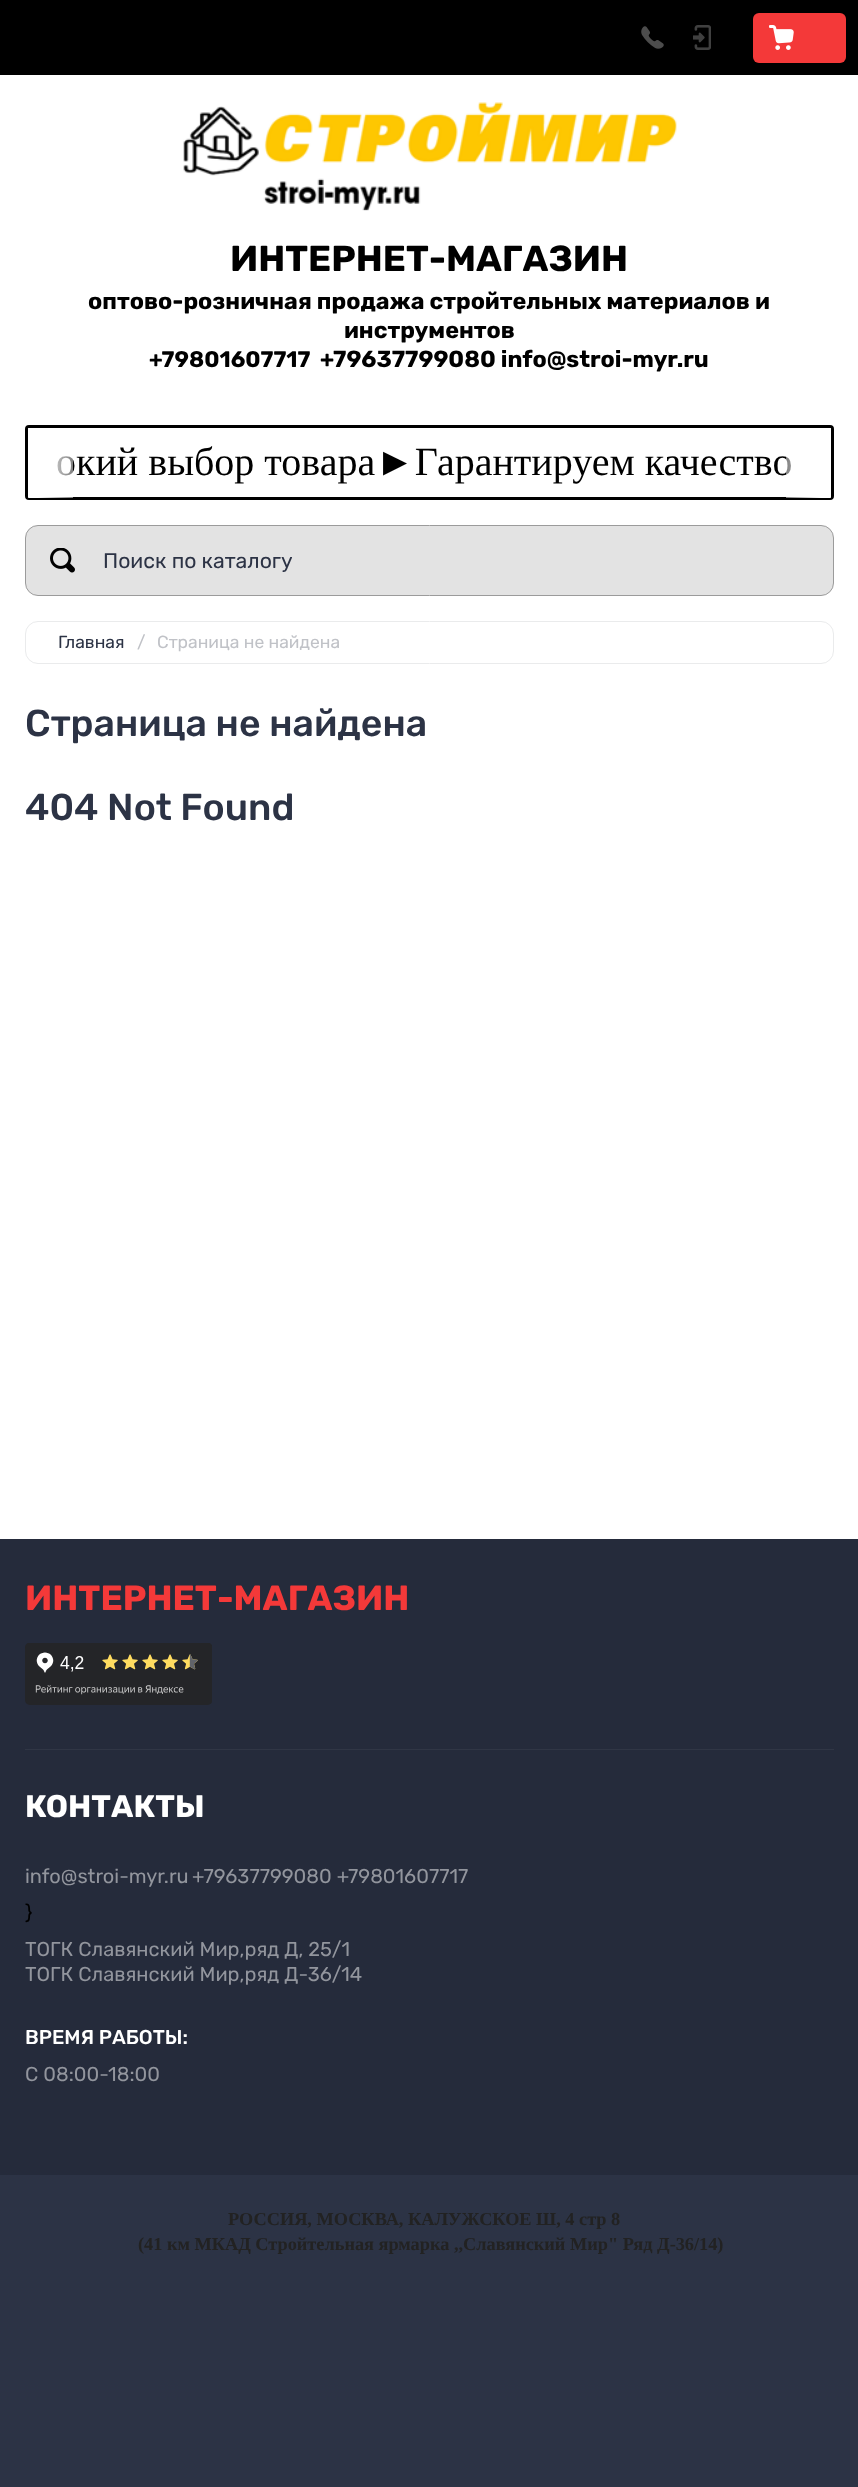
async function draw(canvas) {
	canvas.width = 858;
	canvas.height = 2487;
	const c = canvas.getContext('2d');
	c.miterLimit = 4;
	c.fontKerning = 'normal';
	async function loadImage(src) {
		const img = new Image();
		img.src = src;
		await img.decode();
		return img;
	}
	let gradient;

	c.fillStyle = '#fff';
	c.fillRect(0, 0, 858, 2487);
	c.fillStyle = '#000';
	c.fillRect(0, 0, 858, 75);
	c.drawImage(await loadImage('img1.png'), 641, 26, 23, 23);
	c.drawImage(await loadImage('img2.png'), 693, 25, 18, 25);
	c.fillStyle = '#f43939';
	c.beginPath();
	c.roundRect(753, 13, 93, 50, 6);
	c.fill();
	c.drawImage(await loadImage('img3.png'), 769, 25, 25, 25);
	c.drawImage(await loadImage('img4.png'), 183, 102, 494, 109);
	c.font = 'bold 36.25px Rubik';
	c.fillStyle = '#000';
	c.fillText('ИНТЕРНЕТ-МАГАЗИН', 230, 271);
	c.font = 'bold 23.3px Rubik';
	c.fillText('оптово-розничная продажа стройтельных материалов и', 88, 309);
	c.fillText('инструментов', 344, 338);
	c.font = 'bold 22.5px Rubik';
	c.fillText('+79801607717', 149, 367);
	c.font = 'bold 23.3px Rubik';
	c.fillText('+79637799080 info@stroi-myr.ru', 320, 367);
	c.beginPath();
	c.roundRect(26.5, 426.5, 806, 72, 2.5);
	c.strokeStyle = '#000';
	c.lineWidth = 3;
	c.stroke();
	c.font = '40px Liberation Serif';
	c.fillText('окий выбор товара►Гарантируем качество', 56, 475);
	c.fillStyle = '#ffffff80';
	c.beginPath();
	c.roundRect(28, 428, 45, 70, [1, 0, 0, 1]);
	c.fill();
	gradient = c.createLinearGradient(38, 465, 73, 465);
	gradient.addColorStop(0, '#fff');
	gradient.addColorStop(1, '#ffffff00');
	c.fillStyle = gradient;
	c.fillRect(38, 456, 34, 42);
	c.fillStyle = '#fff';
	c.beginPath();
	c.roundRect(28, 428, 10, 70, [1, 0, 0, 1]);
	c.fill();
	c.fillStyle = '#ffffff80';
	c.beginPath();
	c.roundRect(786, 428, 45, 70, [0, 1, 1, 0]);
	c.fill();
	gradient = c.createLinearGradient(786, 465, 821, 465);
	gradient.addColorStop(0, '#ffffff00');
	gradient.addColorStop(1, '#fff');
	c.fillStyle = gradient;
	c.fillRect(787, 458, 34, 40);
	c.fillStyle = '#fff';
	c.beginPath();
	c.roundRect(821, 428, 10, 70, [0, 1, 1, 0]);
	c.fill();
	c.fillStyle = '#e3e3e3';
	c.beginPath();
	c.roundRect(25.5, 525.5, 808, 70, 12.5);
	c.fill();
	c.strokeStyle = '#9b9b9b';
	c.lineWidth = 1;
	c.stroke();
	c.drawImage(await loadImage('img5.png'), 50, 548, 25, 25);
	c.font = '21.25px Rubik';
	c.fillStyle = '#2c3345';
	c.fillText('Поиск по каталогу', 103, 568);
	c.beginPath();
	c.roundRect(25.5, 621.5, 808, 42, 12.5);
	c.strokeStyle = '#eaebec';
	c.stroke();
	c.font = '17.5px Rubik';
	c.fillText('Главная', 58, 648);
	c.fillStyle = '#c0c2c7';
	c.fillText('/', 137, 648);
	c.fillText('Страница не найдена', 157, 648);
	c.font = '500 37.5px Rubik';
	c.fillStyle = '#2c3345';
	c.fillText('Страница не найдена', 25, 736);
	c.fillText('404 Not Found', 25, 820);
	c.fillStyle = '#252b3b';
	c.fillRect(0, 1539, 858, 636);
	c.fillStyle = '#303645';
	c.fillRect(25, 1749, 809, 1);
	c.font = 'bold 35px Rubik';
	c.fillStyle = '#f43939';
	c.fillText('ИНТЕРНЕТ-МАГАЗИН', 25, 1610);
	c.drawImage(await loadImage('img6.png'), 25, 1643, 187, 62);
	c.font = 'bold 31.25px Rubik';
	c.fillStyle = '#fff';
	c.fillText('КОНТАКТЫ', 25, 1817);
	c.font = '20px Rubik';
	c.fillStyle = '#92959d';
	c.fillText('info@stroi-myr.ru', 25, 1883);
	c.fillText('+79637799080 +79801607717', 192, 1883);
	c.fillStyle = '#000';
	c.fillText('}', 25, 1919);
	c.fillStyle = '#92959d';
	c.fillText('ТОГК Славянский Мир,ряд Д, 25/1', 25, 1956);
	c.fillText('ТОГК Славянский Мир,ряд Д-36/14', 25, 1981);
	c.font = '500 20px Rubik';
	c.fillStyle = '#fff';
	c.fillText('ВРЕМЯ РАБОТЫ:', 25, 2044);
	c.font = '20px Rubik';
	c.fillStyle = '#92959d';
	c.fillText('С 08:00-18:00', 25, 2081);
	c.fillStyle = '#2c3345';
	c.fillRect(0, 2175, 858, 312);
	c.font = 'bold 18.3px Liberation Serif';
	c.fillStyle = '#222';
	c.fillText('РОССИЯ, МОСКВА, КАЛУЖСКОЕ Ш, 4 стр 8', 228, 2225);
	c.fillText('(41 км МКАД Стройтельная ярмарка ,,Славянский Мир" Ряд Д-36/14)', 138, 2250);
}

draw(document.querySelector('canvas'));
